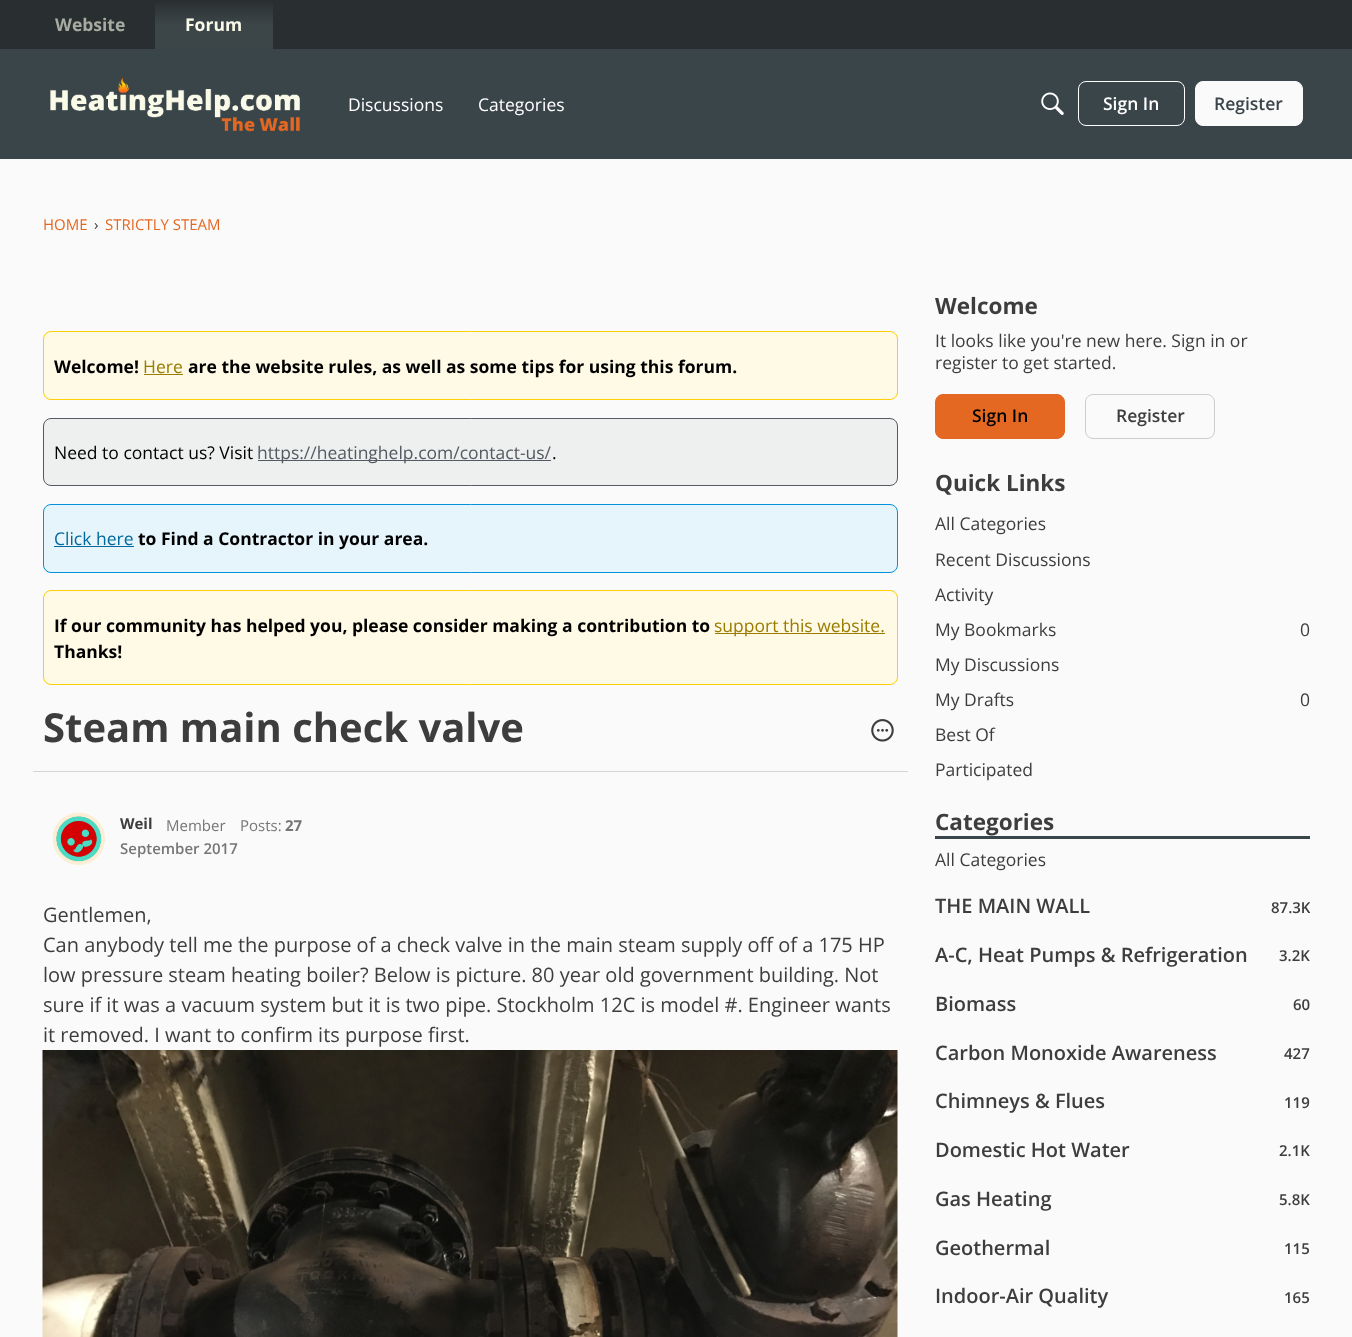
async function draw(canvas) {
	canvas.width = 1352;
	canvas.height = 1337;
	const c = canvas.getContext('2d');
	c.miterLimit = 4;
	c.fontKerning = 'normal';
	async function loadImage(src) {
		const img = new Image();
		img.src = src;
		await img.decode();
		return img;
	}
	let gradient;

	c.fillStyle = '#fafafa';
	c.fillRect(0, 0, 1352, 1337);
	c.fillStyle = '#292f31';
	c.fillRect(0, 0, 1352, 49);
	c.font = 'bold 17.5px Open Sans';
	c.fillStyle = '#a8aba1';
	c.fillText('Website', 55, 31);
	gradient = c.createLinearGradient(214, 0, 214, 49);
	gradient.addColorStop(0, '#292f31');
	gradient.addColorStop(0.5, '#3c4548');
	c.fillStyle = gradient;
	c.fillRect(155, 3, 118, 46);
	c.fillStyle = '#fafae9';
	c.fillText('Forum', 185, 31);
	c.fillStyle = '#3a4549';
	c.fillRect(0, 49, 1352, 110);
	c.drawImage(await loadImage('img1.png'), 50, 77, 250, 55);
	c.font = '17.5px Open Sans';
	c.fillStyle = '#fff';
	c.fillText('Discussions', 348, 111);
	c.fillText('Categories', 478, 111);
	c.drawImage(await loadImage('img2.png'), 1041, 92, 23, 23);
	c.beginPath();
	c.roundRect(1078.5, 81.5, 106, 44, 7.5);
	c.strokeStyle = '#fff';
	c.stroke();
	c.font = '600 17.5px Open Sans';
	c.fillText('Sign In', 1103, 110);
	c.fillStyle = '#fafafa';
	c.beginPath();
	c.roundRect(1195.5, 81.5, 107, 44, 7.5);
	c.fill();
	c.strokeStyle = '#fafafa';
	c.stroke();
	c.fillStyle = '#3a4549';
	c.fillText('Register', 1214, 110);
	c.font = '15px Open Sans';
	c.fillStyle = '#e46822';
	c.fillText('HOME', 43, 230);
	c.fillStyle = '#3d3d3d';
	c.fillText('›', 94, 230);
	c.fillStyle = '#e46822';
	c.fillText('STRICTLY STEAM', 105, 230);
	c.fillStyle = '#fffae6';
	c.beginPath();
	c.roundRect(43.5, 331.5, 854, 68, 7.5);
	c.fill();
	c.strokeStyle = '#ffce00';
	c.stroke();
	c.font = 'bold 17.5px Open Sans';
	c.fillStyle = '#000';
	c.fillText('Welcome!', 54, 373);
	c.font = '17.5px Open Sans';
	c.fillStyle = '#997c00';
	c.fillText('Here', 143, 373);
	c.fillRect(144, 374, 39, 1);
	c.font = 'bold 17.5px Open Sans';
	c.fillStyle = '#000';
	c.fillText('are the website rules, as well as some tips for using this forum.', 188, 373);
	c.fillStyle = '#eeefef';
	c.beginPath();
	c.roundRect(43.5, 418.5, 854, 67, 7.5);
	c.fill();
	c.strokeStyle = '#555a62';
	c.stroke();
	c.font = '17.5px Open Sans';
	c.fillStyle = '#000';
	c.fillText('Need to contact us? Visit', 54, 459);
	c.fillStyle = '#555a62';
	c.fillRect(258, 460, 293, 1);
	c.fillText('https://heatinghelp.com/contact-us/', 257, 459);
	c.fillStyle = '#000';
	c.fillText('.', 552, 459);
	c.fillStyle = '#e6f4fb';
	c.beginPath();
	c.roundRect(43.5, 504.5, 854, 68, 7.5);
	c.fill();
	c.strokeStyle = '#0291db';
	c.stroke();
	c.fillStyle = '#01699e';
	c.fillText('Click here', 54, 545);
	c.fillRect(54, 546, 80, 1);
	c.font = 'bold 17.5px Open Sans';
	c.fillStyle = '#000';
	c.fillText('to Find a Contractor in your area.', 138, 545);
	c.fillStyle = '#fffae6';
	c.beginPath();
	c.roundRect(43.5, 590.5, 854, 94, 7.5);
	c.fill();
	c.strokeStyle = '#ffce00';
	c.stroke();
	c.fillStyle = '#000';
	c.fillText('If our community has helped you, please consider making a contribution to', 54, 632);
	c.fillStyle = '#997c00';
	c.fillRect(715, 633, 170, 1);
	c.font = '17.5px Open Sans';
	c.fillText('support this website.', 714, 632);
	c.font = 'bold 17.5px Open Sans';
	c.fillStyle = '#000';
	c.fillText('Thanks!', 54, 658);
	c.font = 'bold 40px Open Sans';
	c.fillStyle = '#3d3d3d';
	c.fillText('Steam main check valve', 43, 742);
	c.drawImage(await loadImage('img3.png'), 871, 719, 23, 23);
	c.fillStyle = '#d4d4d4';
	c.fillRect(33, 771, 875, 1);
	c.drawImage(await loadImage('img4.png'), 52, 812, 53, 53);
	c.font = 'bold 15px Open Sans';
	c.fillStyle = '#3d3d3d';
	c.fillText('Weil', 120, 829);
	c.font = '15px Open Sans';
	c.fillStyle = '#767676';
	c.fillText('Member', 166, 831);
	c.fillText('Posts:', 240, 831);
	c.font = 'bold 15px Open Sans';
	c.fillText('27', 285, 831);
	c.font = '600 15px Open Sans';
	c.fillText('September 2017', 120, 854);
	c.font = '20px Open Sans';
	c.fillStyle = '#3d3d3d';
	for (const [text, x, y] of [
		['Gentlemen,', 43, 922],
		['Can anybody tell me the purpose of a check valve in the main steam supply off of a 175 HP', 43, 952],
		['low pressure steam heating boiler? Below is picture. 80 year old government building. Not', 43, 982],
		['sure if it was a vacuum system but it is two pipe. Stockholm 12C is model #. Engineer wants', 43, 1012],
		['it removed. I want to confirm its purpose first.', 43, 1042],
	]) {
		c.fillText(text, x, y);
	}
	c.drawImage(await loadImage('img5.png'), 42, 1050, 856, 287);
	c.font = 'bold 22.5px Open Sans';
	c.fillText('Welcome', 935, 314);
	c.font = '17.5px Open Sans';
	c.fillText('It looks like you\'re new here. Sign in or', 935, 347);
	c.fillText('register to get started.', 935, 369);
	c.fillStyle = '#e46822';
	c.beginPath();
	c.roundRect(935.5, 394.5, 129, 44, 7.5);
	c.fill();
	c.strokeStyle = '#e46822';
	c.stroke();
	c.font = '600 17.5px Open Sans';
	c.fillStyle = '#000';
	c.fillText('Sign In', 972, 422);
	c.beginPath();
	c.roundRect(1085.5, 394.5, 129, 44, 7.5);
	c.strokeStyle = '#cdcdcd';
	c.stroke();
	c.fillStyle = '#3d3d3d';
	c.fillText('Register', 1116, 422);
	c.font = 'bold 22.5px Open Sans';
	c.fillText('Quick Links', 935, 491);
	c.font = '17.5px Open Sans';
	for (const [text, x, y] of [
		['All Categories', 935, 530],
		['Recent Discussions', 935, 566],
		['Activity', 935, 601],
		['My Bookmarks', 935, 636],
		['0', 1300, 636],
		['My Discussions', 935, 671],
		['My Drafts', 935, 706],
		['0', 1300, 706],
		['Best Of', 935, 741],
		['Participated', 935, 776],
	]) {
		c.fillText(text, x, y);
	}
	c.fillStyle = '#3a4549';
	c.fillRect(935, 836, 375, 3);
	c.font = 'bold 22.5px Open Sans';
	c.fillStyle = '#3d3d3d';
	c.fillText('Categories', 935, 830);
	c.font = '17.5px Open Sans';
	c.fillText('All Categories', 935, 866);
	c.font = '600 20px Open Sans';
	c.fillText('THE MAIN WALL', 935, 913);
	c.font = '600 15px Open Sans';
	c.fillText('87.3K', 1271, 913);
	c.font = '600 20px Open Sans';
	c.fillText('A-C, Heat Pumps & Refrigeration', 935, 962);
	c.font = '600 15px Open Sans';
	c.fillText('3.2K', 1279, 961);
	c.font = '600 20px Open Sans';
	c.fillText('Biomass', 935, 1011);
	c.font = '600 15px Open Sans';
	c.fillText('60', 1293, 1010);
	c.font = '600 20px Open Sans';
	c.fillText('Carbon Monoxide Awareness', 935, 1060);
	c.font = '600 15px Open Sans';
	c.fillText('427', 1284, 1059);
	c.font = '600 20px Open Sans';
	c.fillText('Chimneys & Flues', 935, 1108);
	c.font = '600 15px Open Sans';
	c.fillText('119', 1284, 1108);
	c.font = '600 20px Open Sans';
	c.fillText('Domestic Hot Water', 935, 1157);
	c.font = '600 15px Open Sans';
	c.fillText('2.1K', 1279, 1156);
	c.font = '600 20px Open Sans';
	c.fillText('Gas Heating', 935, 1206);
	c.font = '600 15px Open Sans';
	c.fillText('5.8K', 1279, 1205);
	c.font = '600 20px Open Sans';
	c.fillText('Geothermal', 935, 1255);
	c.font = '600 15px Open Sans';
	c.fillText('115', 1284, 1254);
	c.font = '600 20px Open Sans';
	c.fillText('Indoor-Air Quality', 935, 1303);
	c.font = '600 15px Open Sans';
	c.fillText('165', 1284, 1303);
}

draw(document.querySelector('canvas'));
